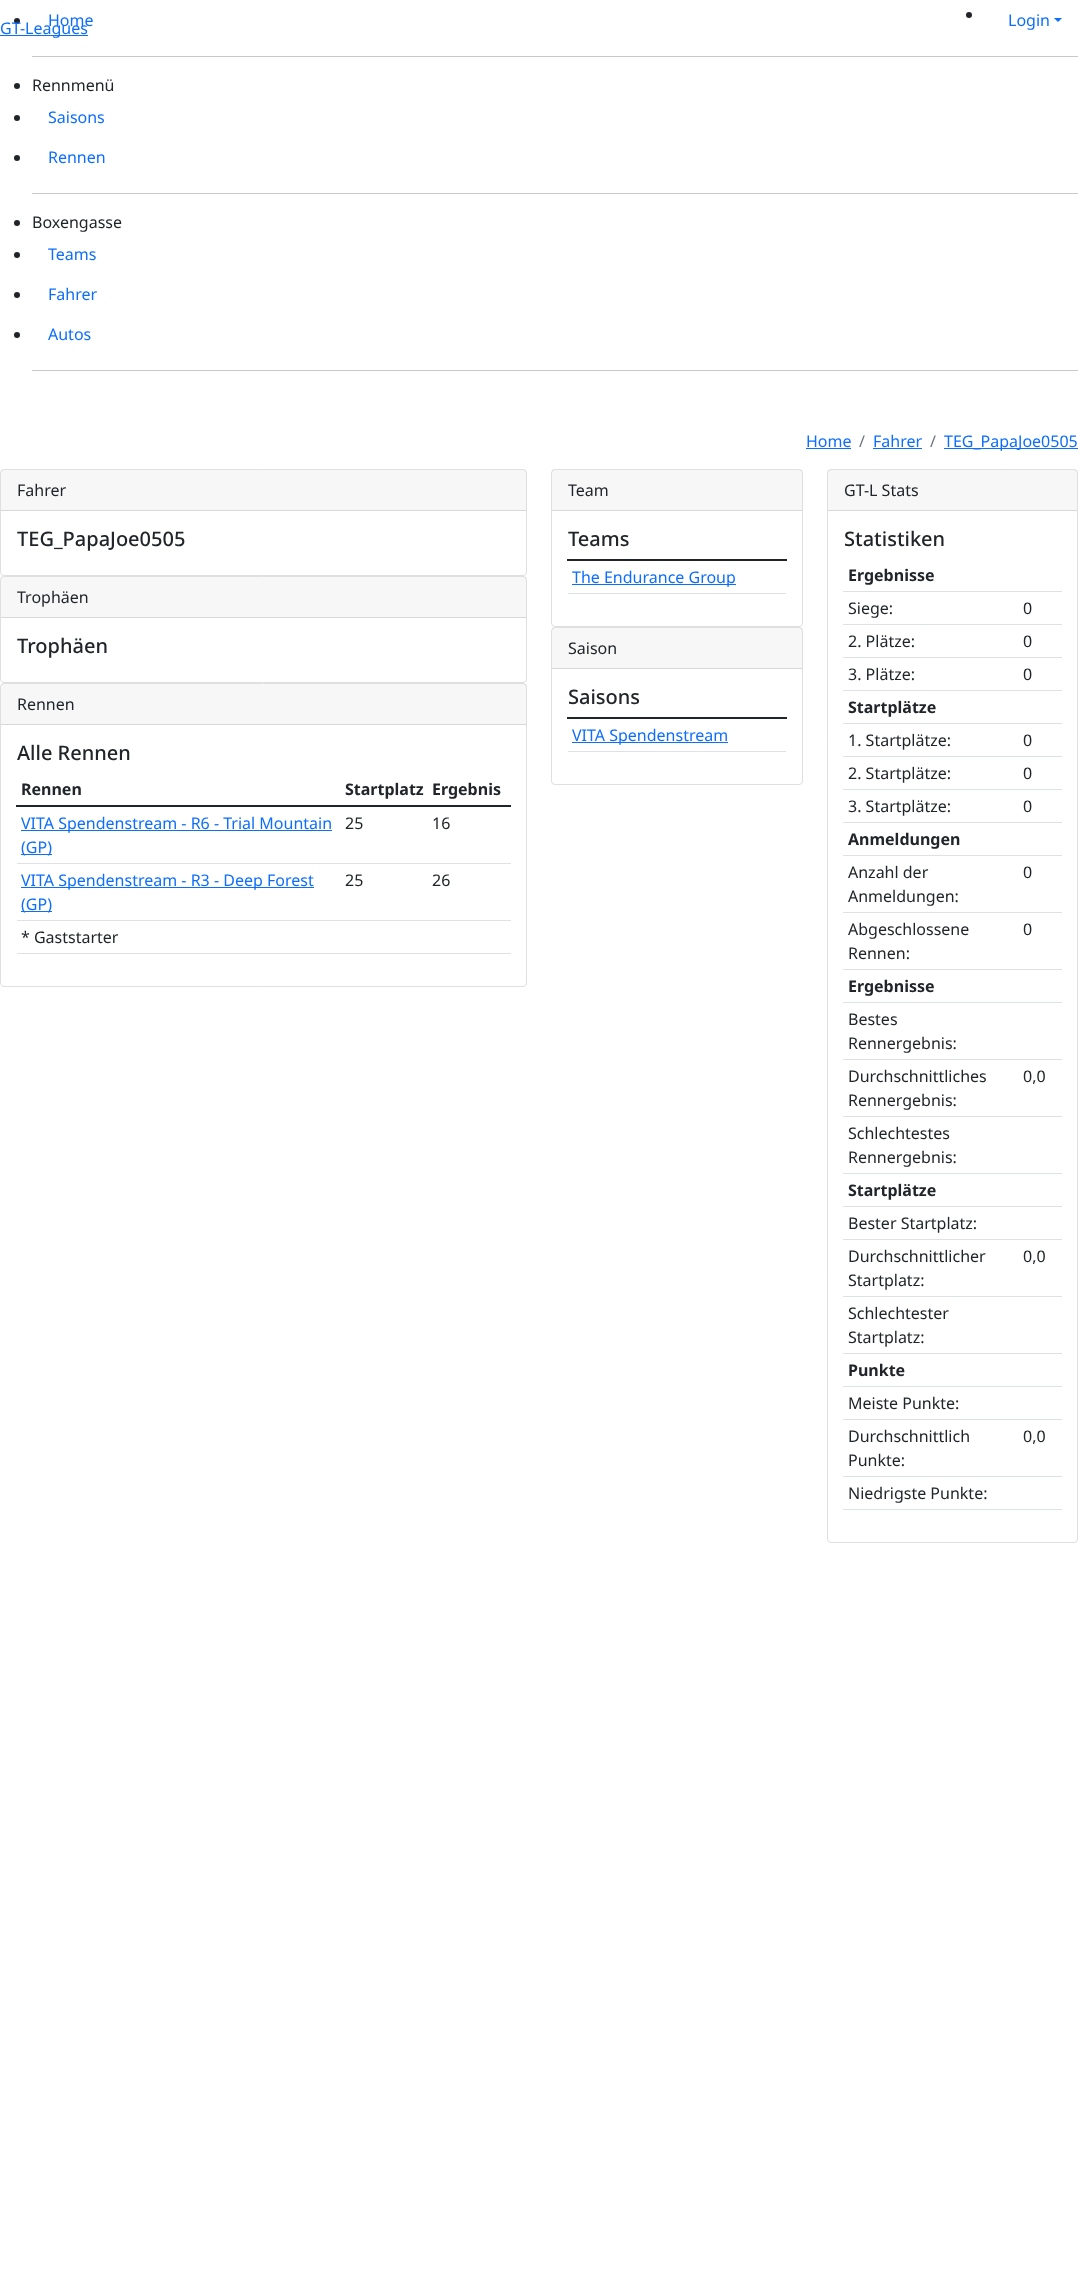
async function draw(canvas) {
	canvas.width = 1078;
	canvas.height = 2271;
	const c = canvas.getContext('2d');
	c.miterLimit = 4;
	c.fontKerning = 'normal';

	c.fillStyle = '#fff';
	c.fillRect(0, 0, 1078, 2271);
	c.fillStyle = '#0d6efd';
	c.fillRect(0, 35, 88, 1);
	c.fillStyle = '#212529';
	c.beginPath();
	c.arc(17, 21, 3, 0, 2 * Math.PI);
	c.fill();
	c.font = '16px Noto Sans';
	c.fillStyle = '#0d6efd';
	c.fillText('GT-Leagues', 0, 34);
	c.fillStyle = '#212529';
	c.beginPath();
	c.arc(969, 15, 3, 0, 2 * Math.PI);
	c.fill();
	c.fillStyle = '#0d6efd';
	c.fillText('Login', 1008, 26);
	c.beginPath();
	c.moveTo(1054, 18);
	c.lineTo(1062, 18);
	c.lineTo(1058, 22);
	c.closePath();
	c.fill();
	c.fillText('Home', 48, 26);
	c.fillStyle = '#c8c9ca';
	c.fillRect(32, 56, 1046, 1);
	c.fillStyle = '#212529';
	c.beginPath();
	c.arc(17, 86, 3, 0, 2 * Math.PI);
	c.fill();
	c.fillText('Rennmenü', 32, 91);
	c.beginPath();
	c.arc(17, 118, 3, 0, 2 * Math.PI);
	c.fill();
	c.fillStyle = '#0d6efd';
	c.fillText('Saisons', 48, 123);
	c.fillStyle = '#212529';
	c.beginPath();
	c.arc(17, 158, 3, 0, 2 * Math.PI);
	c.fill();
	c.fillStyle = '#0d6efd';
	c.fillText('Rennen', 48, 163);
	c.fillStyle = '#c8c9ca';
	c.fillRect(32, 193, 1046, 1);
	c.fillStyle = '#212529';
	c.beginPath();
	c.arc(17, 223, 3, 0, 2 * Math.PI);
	c.fill();
	c.fillText('Boxengasse', 32, 228);
	c.beginPath();
	c.arc(17, 255, 3, 0, 2 * Math.PI);
	c.fill();
	c.fillStyle = '#0d6efd';
	c.fillText('Teams', 48, 260);
	c.fillStyle = '#212529';
	c.beginPath();
	c.arc(17, 295, 3, 0, 2 * Math.PI);
	c.fill();
	c.fillStyle = '#0d6efd';
	c.fillText('Fahrer', 48, 300);
	c.fillStyle = '#212529';
	c.beginPath();
	c.arc(17, 335, 3, 0, 2 * Math.PI);
	c.fill();
	c.fillStyle = '#0d6efd';
	c.fillText('Autos', 48, 340);
	c.fillStyle = '#c8c9ca';
	c.fillRect(32, 370, 1046, 1);
	c.fillStyle = '#0d6efd';
	c.fillText('Home', 806, 447);
	c.fillRect(806, 448, 45, 1);
	c.fillStyle = '#6c757d';
	c.fillText('/', 859, 447);
	c.fillStyle = '#0d6efd';
	c.fillText('Fahrer', 873, 447);
	c.fillRect(873, 448, 49, 1);
	c.fillStyle = '#6c757d';
	c.fillText('/', 930, 447);
	c.fillStyle = '#0d6efd';
	c.fillRect(944, 448, 134, 1);
	c.fillText('TEG_PapaJoe0505', 944, 447);
	c.beginPath();
	c.roundRect(0.5, 469.5, 526, 106, 3.5);
	c.strokeStyle = '#dfdfdf';
	c.stroke();
	c.fillStyle = '#00000008';
	c.fillRect(1, 470, 525, 40);
	c.fillStyle = '#d8d8d8';
	c.fillRect(1, 510, 525, 1);
	c.fillStyle = '#212529';
	c.fillText('Fahrer', 17, 496);
	c.font = '500 20px Noto Sans';
	c.fillText('TEG_PapaJoe0505', 17, 546);
	c.beginPath();
	c.roundRect(0.5, 576.5, 526, 106, 3.5);
	c.stroke();
	c.fillStyle = '#00000008';
	c.fillRect(1, 577, 525, 40);
	c.fillStyle = '#d8d8d8';
	c.fillRect(1, 617, 525, 1);
	c.font = '16px Noto Sans';
	c.fillStyle = '#212529';
	c.fillText('Trophäen', 17, 603);
	c.font = '500 20px Noto Sans';
	c.fillText('Trophäen', 17, 653);
	c.beginPath();
	c.roundRect(0.5, 683.5, 526, 303, 3.5);
	c.stroke();
	c.fillStyle = '#00000008';
	c.fillRect(1, 684, 525, 40);
	c.fillStyle = '#d8d8d8';
	c.fillRect(1, 724, 525, 1);
	c.font = '16px Noto Sans';
	c.fillStyle = '#212529';
	c.fillText('Rennen', 17, 710);
	c.font = '500 20px Noto Sans';
	c.fillText('Alle Rennen', 17, 760);
	c.font = 'bold 16px Noto Sans';
	for (const [text, x, y] of [
		['Rennen', 21, 795],
		['Startplatz', 345, 795],
		['Ergebnis', 432, 795],
	]) {
		c.fillText(text, x, y);
	}
	c.fillRect(16, 805, 495, 2);
	c.fillStyle = '#0d6efd';
	c.fillRect(21, 830, 311, 1);
	c.font = '16px Noto Sans';
	c.fillText('VITA Spendenstream - R6 - Trial Mountain', 21, 829);
	c.fillRect(21, 854, 31, 1);
	c.fillText('(GP)', 21, 853);
	c.fillStyle = '#212529';
	c.fillText('25', 345, 829);
	c.fillStyle = '#dee2e6';
	c.fillRect(17, 863, 494, 1);
	c.fillStyle = '#212529';
	c.fillText('16', 432, 829);
	c.fillStyle = '#0d6efd';
	c.fillRect(21, 887, 293, 1);
	c.fillText('VITA Spendenstream - R3 - Deep Forest', 21, 886);
	c.fillRect(21, 911, 31, 1);
	c.fillText('(GP)', 21, 910);
	c.fillStyle = '#212529';
	c.fillText('25', 345, 886);
	c.fillStyle = '#dee2e6';
	c.fillRect(17, 920, 494, 1);
	c.fillStyle = '#212529';
	c.fillText('26', 432, 886);
	c.fillStyle = '#dee2e6';
	c.fillRect(17, 953, 494, 1);
	c.fillStyle = '#212529';
	c.fillText('* Gaststarter', 21, 943);
	c.beginPath();
	c.roundRect(551.5, 469.5, 251, 157, 3.5);
	c.stroke();
	c.fillStyle = '#00000008';
	c.fillRect(552, 470, 250, 40);
	c.fillStyle = '#d8d8d8';
	c.fillRect(552, 510, 250, 1);
	c.fillStyle = '#212529';
	c.fillText('Team', 568, 496);
	c.font = '500 20px Noto Sans';
	c.fillText('Teams', 568, 546);
	for (const [x, y, w, h, color] of [
		[567, 559, 220, 2, '#212529'],
		[568, 593, 218, 1, '#dee2e6'],
		[572, 584, 164, 1, '#0d6efd'],
	]) {
		c.fillStyle = color;
		c.fillRect(x, y, w, h);
	}
	c.font = '16px Noto Sans';
	c.fillText('The Endurance Group', 572, 583);
	c.beginPath();
	c.roundRect(551.5, 627.5, 251, 157, 3.5);
	c.stroke();
	c.fillStyle = '#00000008';
	c.fillRect(552, 628, 250, 40);
	c.fillStyle = '#d8d8d8';
	c.fillRect(552, 668, 250, 1);
	c.fillStyle = '#212529';
	c.fillText('Saison', 568, 654);
	c.font = '500 20px Noto Sans';
	c.fillText('Saisons', 568, 704);
	for (const [x, y, w, h, color] of [
		[567, 717, 220, 2, '#212529'],
		[568, 751, 218, 1, '#dee2e6'],
		[572, 742, 156, 1, '#0d6efd'],
	]) {
		c.fillStyle = color;
		c.fillRect(x, y, w, h);
	}
	c.font = '16px Noto Sans';
	c.fillText('VITA Spendenstream', 572, 741);
	c.beginPath();
	c.roundRect(827.5, 469.5, 250, 1073, 3.5);
	c.stroke();
	c.fillStyle = '#00000008';
	c.fillRect(828, 470, 249, 40);
	c.fillStyle = '#d8d8d8';
	c.fillRect(828, 510, 249, 1);
	c.fillStyle = '#212529';
	c.fillText('GT-L Stats', 844, 496);
	c.font = '500 20px Noto Sans';
	c.fillText('Statistiken', 844, 546);
	c.font = 'bold 16px Noto Sans';
	c.fillText('Ergebnisse', 848, 581);
	c.fillStyle = '#dee2e6';
	c.fillRect(843, 591, 219, 1);
	c.font = '16px Noto Sans';
	c.fillStyle = '#212529';
	c.fillText('Siege:', 848, 614);
	c.fillText('0', 1023, 614);
	c.fillStyle = '#dee2e6';
	c.fillRect(843, 624, 219, 1);
	c.fillStyle = '#212529';
	c.fillText('2. Plätze:', 848, 647);
	c.fillText('0', 1023, 647);
	c.fillStyle = '#dee2e6';
	c.fillRect(843, 657, 219, 1);
	c.fillStyle = '#212529';
	c.fillText('3. Plätze:', 848, 680);
	c.fillText('0', 1023, 680);
	c.fillStyle = '#dee2e6';
	c.fillRect(843, 690, 219, 1);
	c.font = 'bold 16px Noto Sans';
	c.fillStyle = '#212529';
	c.fillText('Startplätze', 848, 713);
	c.fillStyle = '#dee2e6';
	c.fillRect(843, 723, 219, 1);
	c.font = '16px Noto Sans';
	c.fillStyle = '#212529';
	c.fillText('1. Startplätze:', 848, 746);
	c.fillText('0', 1023, 746);
	c.fillStyle = '#dee2e6';
	c.fillRect(843, 756, 219, 1);
	c.fillStyle = '#212529';
	c.fillText('2. Startplätze:', 848, 779);
	c.fillText('0', 1023, 779);
	c.fillStyle = '#dee2e6';
	c.fillRect(843, 789, 219, 1);
	c.fillStyle = '#212529';
	c.fillText('3. Startplätze:', 848, 812);
	c.fillText('0', 1023, 812);
	c.fillStyle = '#dee2e6';
	c.fillRect(843, 822, 219, 1);
	c.font = 'bold 16px Noto Sans';
	c.fillStyle = '#212529';
	c.fillText('Anmeldungen', 848, 845);
	c.fillStyle = '#dee2e6';
	c.fillRect(843, 855, 219, 1);
	c.font = '16px Noto Sans';
	c.fillStyle = '#212529';
	for (const [text, x, y] of [
		['Anzahl der', 848, 878],
		['Anmeldungen:', 848, 902],
		['0', 1023, 878],
	]) {
		c.fillText(text, x, y);
	}
	c.fillStyle = '#dee2e6';
	c.fillRect(843, 912, 219, 1);
	c.fillStyle = '#212529';
	for (const [text, x, y] of [
		['Abgeschlossene', 848, 935],
		['Rennen:', 848, 959],
		['0', 1023, 935],
	]) {
		c.fillText(text, x, y);
	}
	c.fillStyle = '#dee2e6';
	c.fillRect(843, 969, 219, 1);
	c.font = 'bold 16px Noto Sans';
	c.fillStyle = '#212529';
	c.fillText('Ergebnisse', 848, 992);
	c.fillStyle = '#dee2e6';
	c.fillRect(843, 1002, 219, 1);
	c.font = '16px Noto Sans';
	c.fillStyle = '#212529';
	c.fillText('Bestes', 848, 1025);
	c.fillText('Rennergebnis:', 848, 1049);
	c.fillStyle = '#dee2e6';
	c.fillRect(843, 1059, 219, 1);
	c.fillStyle = '#212529';
	for (const [text, x, y] of [
		['Durchschnittliches', 848, 1082],
		['Rennergebnis:', 848, 1106],
		['0,0', 1023, 1082],
	]) {
		c.fillText(text, x, y);
	}
	c.fillStyle = '#dee2e6';
	c.fillRect(843, 1116, 219, 1);
	c.fillStyle = '#212529';
	c.fillText('Schlechtestes', 848, 1139);
	c.fillText('Rennergebnis:', 848, 1163);
	c.fillStyle = '#dee2e6';
	c.fillRect(843, 1173, 219, 1);
	c.font = 'bold 16px Noto Sans';
	c.fillStyle = '#212529';
	c.fillText('Startplätze', 848, 1196);
	c.fillStyle = '#dee2e6';
	c.fillRect(843, 1206, 219, 1);
	c.font = '16px Noto Sans';
	c.fillStyle = '#212529';
	c.fillText('Bester Startplatz:', 848, 1229);
	c.fillStyle = '#dee2e6';
	c.fillRect(843, 1239, 219, 1);
	c.fillStyle = '#212529';
	for (const [text, x, y] of [
		['Durchschnittlicher', 848, 1262],
		['Startplatz:', 848, 1286],
		['0,0', 1023, 1262],
	]) {
		c.fillText(text, x, y);
	}
	c.fillStyle = '#dee2e6';
	c.fillRect(843, 1296, 219, 1);
	c.fillStyle = '#212529';
	c.fillText('Schlechtester', 848, 1319);
	c.fillText('Startplatz:', 848, 1343);
	c.fillStyle = '#dee2e6';
	c.fillRect(843, 1353, 219, 1);
	c.font = 'bold 16px Noto Sans';
	c.fillStyle = '#212529';
	c.fillText('Punkte', 848, 1376);
	c.fillStyle = '#dee2e6';
	c.fillRect(843, 1386, 219, 1);
	c.font = '16px Noto Sans';
	c.fillStyle = '#212529';
	c.fillText('Meiste Punkte:', 848, 1409);
	c.fillStyle = '#dee2e6';
	c.fillRect(843, 1419, 219, 1);
	c.fillStyle = '#212529';
	for (const [text, x, y] of [
		['Durchschnittlich', 848, 1442],
		['Punkte:', 848, 1466],
		['0,0', 1023, 1442],
	]) {
		c.fillText(text, x, y);
	}
	c.fillStyle = '#dee2e6';
	c.fillRect(843, 1476, 219, 1);
	c.fillStyle = '#212529';
	c.fillText('Niedrigste Punkte:', 848, 1499);
	c.fillStyle = '#dee2e6';
	c.fillRect(843, 1509, 219, 1);
}

draw(document.querySelector('canvas'));
